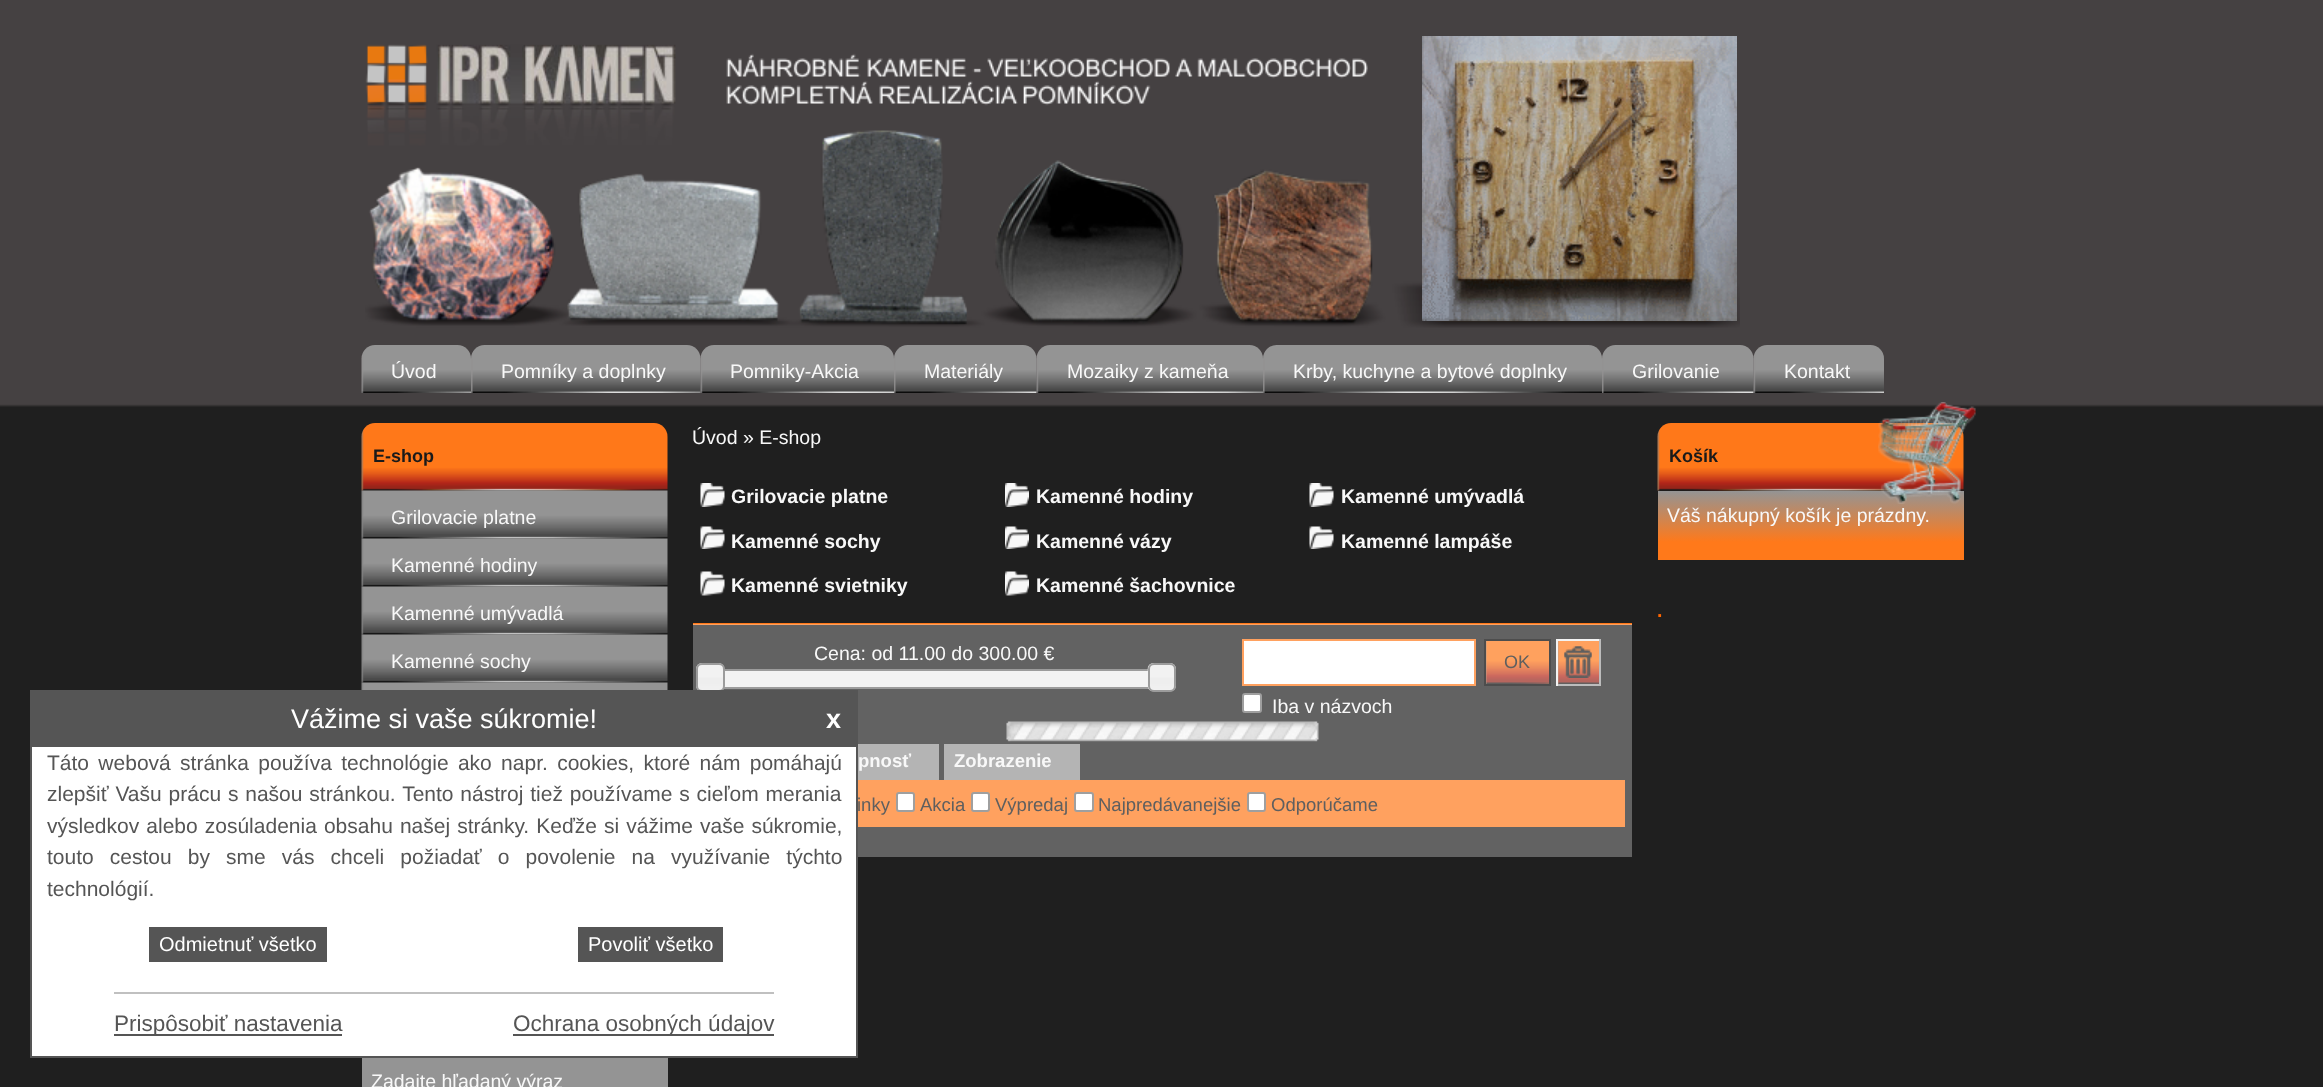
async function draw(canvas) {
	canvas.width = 2323;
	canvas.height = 1087;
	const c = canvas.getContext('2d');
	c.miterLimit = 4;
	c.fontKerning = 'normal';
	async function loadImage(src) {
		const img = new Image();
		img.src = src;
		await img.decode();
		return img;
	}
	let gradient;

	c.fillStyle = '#1f1f1f';
	c.fillRect(0, 0, 2323, 1087);
	c.fillStyle = '#626262';
	c.fillRect(693, 625, 939, 232);
	c.drawImage(await loadImage('img1.png'), 0, 0, 2323, 407);
	c.drawImage(await loadImage('img3.png'), 365, 40, 1375, 288);
	c.drawImage(await loadImage('img2.png'), 1422, 36, 315, 285);
	c.drawImage(await loadImage('img4.png'), 361, 345, 110, 48);
	c.font = '19.5px Liberation Sans';
	c.fillStyle = '#f8f8f8';
	c.fillText('Úvod', 391, 378);
	c.drawImage(await loadImage('img5.png'), 471, 345, 230, 48);
	c.fillText('Pomníky a doplnky', 501, 378);
	c.drawImage(await loadImage('img6.png'), 700, 345, 194, 48);
	c.fillText('Pomniky-Akcia', 730, 378);
	c.drawImage(await loadImage('img7.png'), 894, 345, 143, 48);
	c.fillText('Materiály', 924, 378);
	c.drawImage(await loadImage('img8.png'), 1036, 345, 227, 48);
	c.fillText('Mozaiky z kameňa', 1067, 378);
	c.drawImage(await loadImage('img9.png'), 1263, 345, 339, 48);
	c.fillText('Krby, kuchyne a bytové doplnky', 1293, 378);
	c.drawImage(await loadImage('img10.png'), 1602, 345, 152, 48);
	c.fillText('Grilovanie', 1632, 378);
	c.drawImage(await loadImage('img11.png'), 1753, 345, 131, 48);
	c.fillText('Kontakt', 1784, 378);
	c.drawImage(await loadImage('img12.png'), 361, 423, 307, 68);
	c.font = 'bold 18px Liberation Sans';
	c.fillStyle = '#1a1a1a';
	c.fillText('E-shop', 373, 462);
	c.drawImage(await loadImage('img13.png'), 361, 490, 307, 49);
	c.font = '19.5px Liberation Sans';
	c.fillStyle = '#f8f8f8';
	c.fillText('Grilovacie platne', 391, 524);
	c.drawImage(await loadImage('img14.png'), 361, 538, 307, 49);
	c.fillText('Kamenné hodiny', 391, 572);
	c.drawImage(await loadImage('img14.png'), 361, 586, 307, 49);
	c.fillText('Kamenné umývadlá', 391, 620);
	c.drawImage(await loadImage('img14.png'), 361, 634, 307, 49);
	c.fillText('Kamenné sochy', 391, 668);
	c.drawImage(await loadImage('img15.png'), 361, 682, 307, 8);
	c.fillStyle = '#949494';
	c.fillRect(362, 1058, 306, 29);
	c.fillStyle = '#f8f8f8';
	c.fillText('Zadajte hľadaný výraz', 371, 1088);
	c.fillText('Úvod » E-shop', 692, 444);
	c.drawImage(await loadImage('img16.png'), 700, 483, 25, 24);
	c.font = 'bold 19.5px Liberation Sans';
	c.fillText('Grilovacie platne', 731, 503);
	c.drawImage(await loadImage('img17.png'), 1005, 483, 24, 24);
	c.fillText('Kamenné hodiny', 1036, 503);
	c.drawImage(await loadImage('img16.png'), 1309, 483, 25, 24);
	c.fillText('Kamenné umývadlá', 1341, 503);
	c.drawImage(await loadImage('img18.png'), 700, 526, 25, 23);
	c.fillText('Kamenné sochy', 731, 548);
	c.drawImage(await loadImage('img19.png'), 1005, 526, 24, 23);
	c.fillText('Kamenné vázy', 1036, 548);
	c.drawImage(await loadImage('img18.png'), 1309, 526, 25, 23);
	c.fillText('Kamenné lampáše', 1341, 548);
	c.drawImage(await loadImage('img20.png'), 700, 571, 25, 25);
	c.fillText('Kamenné svietniky', 731, 592);
	c.drawImage(await loadImage('img21.png'), 1005, 571, 24, 25);
	c.fillText('Kamenné šachovnice', 1036, 592);
	c.fillStyle = '#ff791a';
	c.fillRect(693, 623, 939, 1);
	c.fillStyle = '#ffa15f';
	c.fillRect(693, 624, 939, 1);
	c.font = '19.5px Liberation Sans';
	c.fillStyle = '#f8f8f8';
	c.fillText('Cena: od 11.00 do 300.00 €', 814, 660);
	c.strokeStyle = '#9c9c9c';
	c.lineWidth = 2;
	c.strokeRect(709, 670, 453, 18);
	c.fillStyle = '#f3f3f3';
	c.fillRect(724, 671, 452, 16);
	c.drawImage(await loadImage('img22.png'), 696, 663, 29, 27);
	c.beginPath();
	c.roundRect(697, 664, 27, 27, 5);
	c.stroke();
	c.drawImage(await loadImage('img23.png'), 1147, 663, 29, 29);
	c.beginPath();
	c.roundRect(1149, 664, 26, 27, 5);
	c.stroke();
	c.fillStyle = '#fff';
	c.beginPath();
	c.rect(1243, 640, 232, 45);
	c.fill();
	c.strokeStyle = '#ffa15f';
	c.stroke();
	c.drawImage(await loadImage('img24.png'), 1486, 641, 63, 43);
	c.strokeStyle = '#4d4d4d';
	c.strokeRect(1485, 640, 65, 45);
	c.font = '18px Liberation Sans';
	c.fillStyle = '#5f5f5f';
	c.fillText('OK', 1504, 668);
	c.drawImage(await loadImage('img25.png'), 1558, 641, 41, 43);
	for (const [x, y, w, h, color] of [
		[1556, 639, 45, 2, '#f3f3f3'],
		[1599, 639, 2, 47, '#bcbcbc'],
		[1556, 684, 45, 2, '#bcbcbc'],
		[1556, 639, 2, 47, '#f3f3f3'],
	]) {
		c.fillStyle = color;
		c.fillRect(x, y, w, h);
	}
	c.drawImage(await loadImage('img26.png'), 1564, 646, 28, 32);
	c.fillStyle = '#fff';
	c.beginPath();
	c.roundRect(1243, 694, 18, 18, 2);
	c.fill();
	c.strokeStyle = '#9f9f9f';
	c.stroke();
	c.font = '19.5px Liberation Sans';
	c.fillStyle = '#f8f8f8';
	c.fillText('Iba v názvoch', 1272, 713);
	c.drawImage(await loadImage('img27.png'), 1006, 721, 313, 21);
	c.fillStyle = '#b4b4b4';
	c.fillRect(858, 744, 81, 36);
	c.font = 'bold 18.5px Liberation Sans';
	c.fillStyle = '#f8f8f8';
	c.fillText('pnosť', 858, 767);
	c.fillStyle = '#b4b4b4';
	c.fillRect(944, 744, 136, 36);
	c.fillStyle = '#f8f8f8';
	c.fillText('Zobrazenie', 954, 767);
	c.fillStyle = '#ffa15f';
	c.fillRect(858, 780, 767, 47);
	c.font = '18.5px Liberation Sans';
	c.fillStyle = '#5f5f5f';
	c.fillText('inky', 857, 811);
	c.fillStyle = '#fff';
	c.beginPath();
	c.roundRect(897, 793, 17, 18, 2);
	c.fill();
	c.stroke();
	c.fillStyle = '#5f5f5f';
	c.fillText('Akcia', 920, 811);
	c.fillStyle = '#fff';
	c.beginPath();
	c.roundRect(972, 793, 17, 18, 2);
	c.fill();
	c.stroke();
	c.fillStyle = '#5f5f5f';
	c.fillText('Výpredaj', 995, 811);
	c.fillStyle = '#fff';
	c.beginPath();
	c.roundRect(1075, 793, 18, 18, 2);
	c.fill();
	c.stroke();
	c.fillStyle = '#5f5f5f';
	c.fillText('Najpredávanejšie', 1098, 811);
	c.fillStyle = '#fff';
	c.beginPath();
	c.roundRect(1248, 793, 17, 18, 2);
	c.fill();
	c.stroke();
	c.fillStyle = '#5f5f5f';
	c.fillText('Odporúčame', 1271, 811);
	c.drawImage(await loadImage('img28.png'), 1657, 423, 307, 68);
	c.font = 'bold 18px Liberation Sans';
	c.fillStyle = '#1a1a1a';
	c.fillText('Košík', 1669, 462);
	gradient = c.createLinearGradient(1811, 491, 1811, 542);
	gradient.addColorStop(0, '#949494');
	gradient.addColorStop(1, '#ff791a');
	c.fillStyle = gradient;
	c.fillRect(1658, 491, 306, 51);
	c.drawImage(await loadImage('img29.png'), 1878, 402, 98, 102);
	c.font = '19.5px Liberation Sans';
	c.fillStyle = '#f8f8f8';
	c.fillText('Váš nákupný košík je prázdny.', 1667, 522);
	c.fillStyle = '#ff791a';
	c.fillRect(1658, 542, 306, 18);
	c.font = 'bold 19.5px Liberation Sans';
	c.fillStyle = '#f60';
	c.fillText('.', 1657, 617);
	c.fillStyle = '#fff';
	c.fillRect(32, 747, 824, 309);
	c.strokeStyle = '#555';
	c.strokeRect(31, 691, 826, 366);
	c.fillStyle = '#555';
	c.fillRect(32, 692, 824, 55);
	c.font = '27px Liberation Sans';
	c.fillStyle = '#fff';
	c.fillText('Vážime si vaše súkromie!', 291, 728);
	c.font = 'bold 27px Liberation Sans';
	c.fillText('x', 826, 728);
	c.wordSpacing = '3.5px';
	c.font = '21px Liberation Sans';
	c.fillStyle = '#555';
	c.fillText('Táto webová stránka používa technológie ako napr. cookies, ktoré nám pomáhajú', 47, 770);
	c.wordSpacing = '1px';
	c.fillText('zlepšiť Vašu prácu s našou stránkou. Tento nástroj tiež používame s cieľom merania', 47, 801);
	c.wordSpacing = '1.25px';
	c.fillText('výsledkov alebo zosúladenia obsahu našej stránky. Keďže si vážime vaše súkromie,', 47, 833);
	c.wordSpacing = '10.25px';
	c.fillText('touto cestou by sme vás chceli požiadať o povolenie na využívanie týchto', 47, 864);
	c.wordSpacing = '0px';
	c.fillText('technológií.', 47, 896);
	c.fillRect(151, 929, 174, 31);
	c.strokeRect(150, 928, 176, 33);
	c.font = '20px Liberation Sans';
	c.fillStyle = '#fff';
	c.fillText('Odmietnuť všetko', 159, 951);
	c.fillStyle = '#555';
	c.fillRect(580, 929, 141, 31);
	c.strokeRect(579, 928, 143, 33);
	c.fillStyle = '#fff';
	c.fillText('Povoliť všetko', 588, 951);
	c.fillStyle = '#c0c0c0';
	c.fillRect(114, 992, 660, 2);
	c.fillStyle = '#555';
	c.fillRect(114, 1034, 228, 2);
	c.font = '22.5px Liberation Sans';
	c.fillText('Prispôsobiť nastavenia', 114, 1031);
	c.fillRect(513, 1034, 261, 2);
	c.fillText('Ochrana osobných údajov', 513, 1031);
}

draw(document.querySelector('canvas'));
